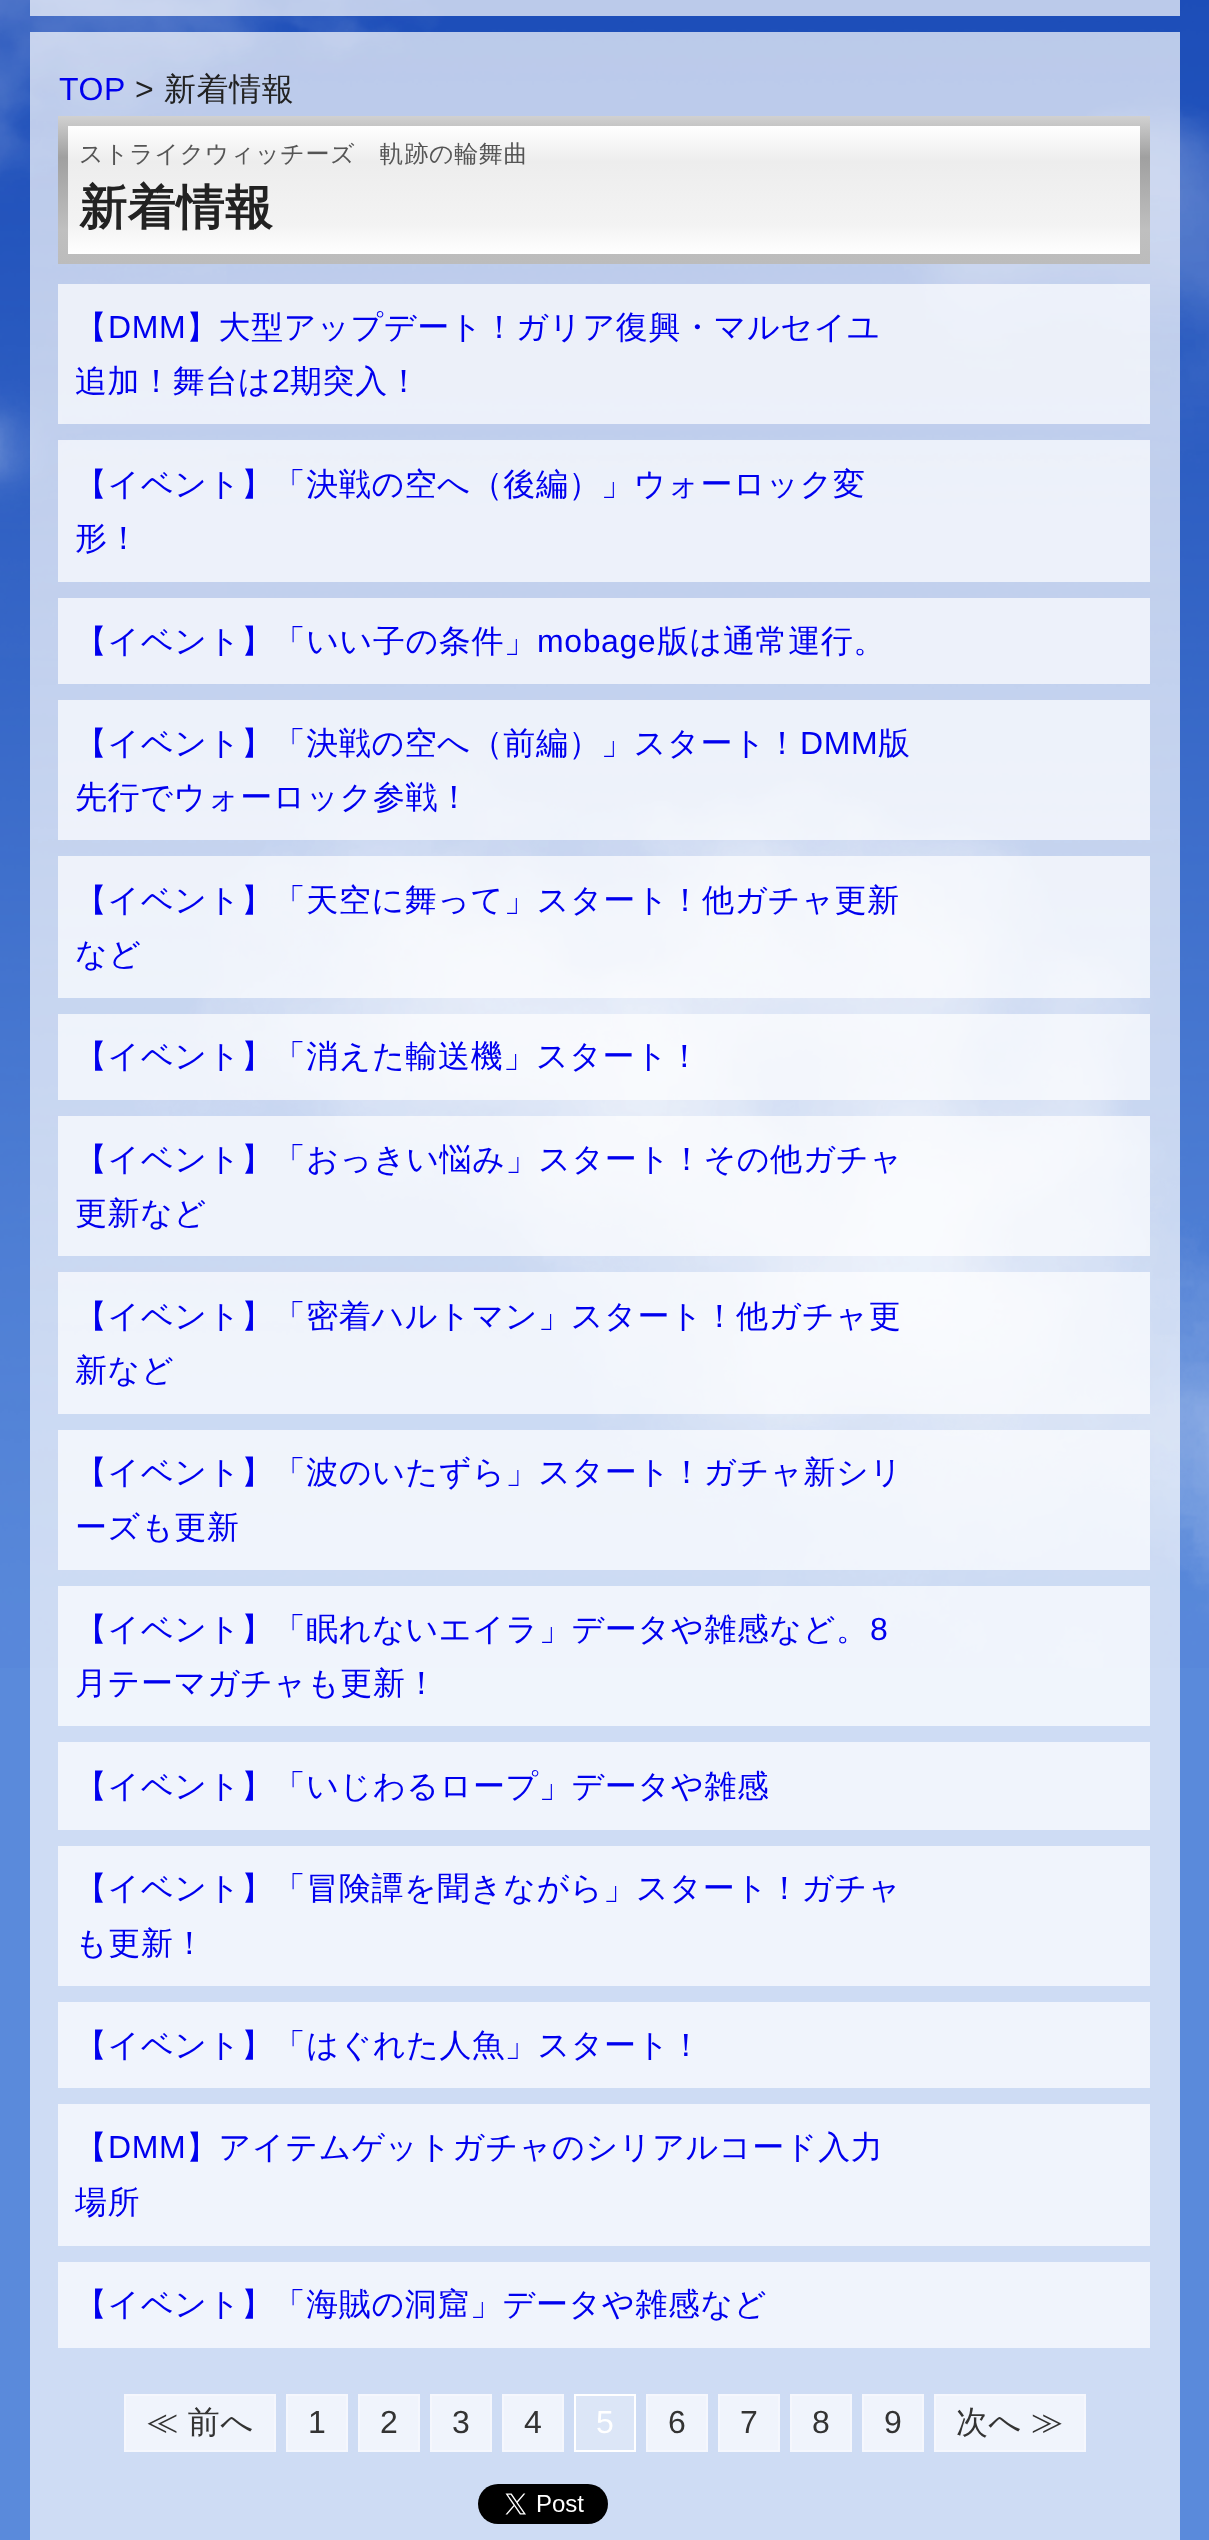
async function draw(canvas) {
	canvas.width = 1209;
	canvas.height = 2540;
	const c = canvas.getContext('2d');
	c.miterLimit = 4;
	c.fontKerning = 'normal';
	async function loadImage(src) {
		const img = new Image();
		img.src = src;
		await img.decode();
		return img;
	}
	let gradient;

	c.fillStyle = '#5a8adb';
	c.fillRect(0, 0, 1209, 2540);
	c.fillStyle = '#cedcf4';
	c.fillRect(30, 32, 1150, 2508);
	c.drawImage(await loadImage('img1.png'), 0, 0, 1209, 1668);
	c.fillStyle = '#ffffffb3';
	c.fillRect(30, 0, 1150, 16);
	c.letterSpacing = '0.6px';
	c.font = '32px Liberation Sans';
	c.fillStyle = '#00e';
	c.fillText('TOP', 59, 100);
	c.fillStyle = '#222';
	c.fillText('>', 135, 100);
	c.font = '500 32px WenQuanYi Zen Hei';
	c.fillText('新着情報', 164, 100);
	gradient = c.createLinearGradient(604, 116, 604, 264);
	gradient.addColorStop(0, '#d1d1d1');
	gradient.addColorStop(0.28, '#a0a0a0');
	gradient.addColorStop(0.77, '#bfbfbf');
	gradient.addColorStop(1, '#bcbcbc');
	c.fillStyle = gradient;
	c.fillRect(58, 116, 1092, 148);
	gradient = c.createLinearGradient(604, 126, 604, 254);
	gradient.addColorStop(0, '#fff');
	gradient.addColorStop(0.28, '#ededed');
	gradient.addColorStop(0.77, '#f3f3f3');
	gradient.addColorStop(1, '#fff');
	c.fillStyle = gradient;
	c.fillRect(68, 126, 1072, 128);
	c.font = '500 24px WenQuanYi Zen Hei';
	c.fillStyle = '#555';
	c.fillText('ストライクウィッチーズ　軌跡の輪舞曲', 79, 162);
	c.font = 'bold 48px WenQuanYi Zen Hei';
	c.fillStyle = '#222';
	c.fillText('新着情報', 79, 224);
	c.fillStyle = '#ffffffb3';
	c.fillRect(58, 284, 1092, 140);
	c.font = '500 32px WenQuanYi Zen Hei';
	c.fillStyle = '#00e';
	c.fillText('【', 75, 338);
	c.font = '32px Liberation Sans';
	c.fillText('DMM', 108, 338);
	c.font = '500 32px WenQuanYi Zen Hei';
	c.fillText('】大型アップデート！ガリア復興・マルセイユ', 186, 338);
	c.fillText('追加！舞台は', 75, 392);
	c.font = '32px Liberation Sans';
	c.fillText('2', 272, 392);
	c.font = '500 32px WenQuanYi Zen Hei';
	c.fillText('期突入！', 290, 392);
	c.fillStyle = '#ffffffb3';
	c.fillRect(58, 440, 1092, 142);
	c.fillStyle = '#00e';
	c.fillText('【イベント】「決戦の空へ（後編）」ウォーロック変', 75, 495);
	c.fillText('形！', 75, 549);
	c.fillStyle = '#edf1fa';
	c.fillRect(58, 598, 1092, 86);
	c.fillStyle = '#00e';
	c.fillText('【イベント】「いい子の条件」', 75, 652);
	c.font = '32px Liberation Sans';
	c.fillText('mobage', 537, 652);
	c.font = '500 32px WenQuanYi Zen Hei';
	c.fillText('版は通常運行。', 657, 652);
	c.fillStyle = '#ffffffb3';
	c.fillRect(58, 700, 1092, 140);
	c.fillStyle = '#00e';
	c.fillText('【イベント】「決戦の空へ（前編）」スタート！', 75, 754);
	c.font = '32px Liberation Sans';
	c.fillText('DMM', 800, 754);
	c.font = '500 32px WenQuanYi Zen Hei';
	c.fillText('版', 878, 754);
	c.fillText('先行でウォーロック参戦！', 75, 808);
	c.fillStyle = '#ffffffb3';
	c.fillRect(58, 856, 1092, 142);
	c.fillStyle = '#00e';
	c.fillText('【イベント】「天空に舞って」スタート！他ガチャ更新', 75, 911);
	c.fillText('など', 75, 965);
	c.fillStyle = '#ffffffb3';
	c.fillRect(58, 1014, 1092, 86);
	c.fillStyle = '#00e';
	c.fillText('【イベント】「消えた輸送機」スタート！', 75, 1067);
	c.fillStyle = '#ffffffb3';
	c.fillRect(58, 1116, 1092, 140);
	c.fillStyle = '#00e';
	c.fillText('【イベント】「おっきい悩み」スタート！その他ガチャ', 75, 1170);
	c.fillText('更新など', 75, 1224);
	c.fillStyle = '#ffffffb3';
	c.fillRect(58, 1272, 1092, 142);
	c.fillStyle = '#00e';
	c.fillText('【イベント】「密着ハルトマン」スタート！他ガチャ更', 75, 1327);
	c.fillText('新など', 75, 1381);
	c.fillStyle = '#ffffffb3';
	c.fillRect(58, 1430, 1092, 140);
	c.fillStyle = '#00e';
	c.fillText('【イベント】「波のいたずら」スタート！ガチャ新シリ', 75, 1483);
	c.fillText('ーズも更新', 75, 1538);
	c.fillStyle = '#ffffffb3';
	c.fillRect(58, 1586, 1092, 140);
	c.fillStyle = '#00e';
	c.fillText('【イベント】「眠れないエイラ」データや雑感など。', 75, 1640);
	c.font = '32px Liberation Sans';
	c.fillText('8', 870, 1640);
	c.font = '500 32px WenQuanYi Zen Hei';
	c.fillText('月テーマガチャも更新！', 75, 1694);
	c.fillStyle = '#f0f4fc';
	c.fillRect(58, 1742, 1092, 88);
	c.fillStyle = '#00e';
	c.fillText('【イベント】「いじわるロープ」データや雑感', 75, 1797);
	c.fillStyle = '#f0f4fc';
	c.fillRect(58, 1846, 1092, 140);
	c.fillStyle = '#00e';
	c.fillText('【イベント】「冒険譚を聞きながら」スタート！ガチャ', 75, 1899);
	c.fillText('も更新！', 75, 1954);
	c.fillStyle = '#f0f4fc';
	c.fillRect(58, 2002, 1092, 86);
	c.fillStyle = '#00e';
	c.fillText('【イベント】「はぐれた人魚」スタート！', 75, 2056);
	c.fillStyle = '#f0f4fc';
	c.fillRect(58, 2104, 1092, 142);
	c.fillStyle = '#00e';
	c.fillText('【', 75, 2158);
	c.font = '32px Liberation Sans';
	c.fillText('DMM', 108, 2158);
	c.font = '500 32px WenQuanYi Zen Hei';
	c.fillText('】アイテムゲットガチャのシリアルコード入力', 186, 2158);
	c.fillText('場所', 75, 2213);
	c.fillStyle = '#f0f4fc';
	c.fillRect(58, 2262, 1092, 86);
	c.fillStyle = '#00e';
	c.fillText('【イベント】「海賊の洞窟」データや雑感など', 75, 2315);
	c.fillStyle = '#f0f4fc';
	c.beginPath();
	c.rect(125, 2395, 150, 56);
	c.fill();
	c.strokeStyle = '#f5f7fd';
	c.lineWidth = 2;
	c.stroke();
	c.wordSpacing = '-1px';
	c.fillStyle = '#333';
	c.fillText('≪ 前へ', 146, 2433);
	c.fillStyle = '#f0f4fc';
	c.beginPath();
	c.rect(287, 2395, 60, 56);
	c.fill();
	c.stroke();
	c.wordSpacing = '0px';
	c.font = '32px Liberation Sans';
	c.fillStyle = '#333';
	c.fillText('1', 308, 2433);
	c.fillStyle = '#f0f4fc';
	c.beginPath();
	c.rect(359, 2395, 60, 56);
	c.fill();
	c.stroke();
	c.fillStyle = '#333';
	c.fillText('2', 380, 2433);
	c.fillStyle = '#f0f4fc';
	c.beginPath();
	c.rect(431, 2395, 60, 56);
	c.fill();
	c.stroke();
	c.fillStyle = '#333';
	c.fillText('3', 452, 2433);
	c.fillStyle = '#f0f4fc';
	c.beginPath();
	c.rect(503, 2395, 60, 56);
	c.fill();
	c.stroke();
	c.fillStyle = '#333';
	c.fillText('4', 524, 2433);
	c.fillStyle = '#dce6f7';
	c.beginPath();
	c.rect(575, 2395, 60, 56);
	c.fill();
	c.strokeStyle = '#fff';
	c.stroke();
	c.fillStyle = '#fff';
	c.fillText('5', 596, 2433);
	c.fillStyle = '#f0f4fc';
	c.beginPath();
	c.rect(647, 2395, 60, 56);
	c.fill();
	c.strokeStyle = '#f5f7fd';
	c.stroke();
	c.fillStyle = '#333';
	c.fillText('6', 668, 2433);
	c.fillStyle = '#f0f4fc';
	c.beginPath();
	c.rect(719, 2395, 60, 56);
	c.fill();
	c.stroke();
	c.fillStyle = '#333';
	c.fillText('7', 740, 2433);
	c.fillStyle = '#f0f4fc';
	c.beginPath();
	c.rect(791, 2395, 60, 56);
	c.fill();
	c.stroke();
	c.fillStyle = '#333';
	c.fillText('8', 812, 2433);
	c.fillStyle = '#f0f4fc';
	c.beginPath();
	c.rect(863, 2395, 60, 56);
	c.fill();
	c.stroke();
	c.fillStyle = '#333';
	c.fillText('9', 884, 2433);
	c.fillStyle = '#f0f4fc';
	c.beginPath();
	c.rect(935, 2395, 150, 56);
	c.fill();
	c.stroke();
	c.wordSpacing = '-1px';
	c.font = '500 32px WenQuanYi Zen Hei';
	c.fillStyle = '#333';
	c.fillText('次へ ≫', 956, 2433);
	c.drawImage(await loadImage('img2.png'), 478, 2484, 130, 40);
}

draw(document.querySelector('canvas'));
